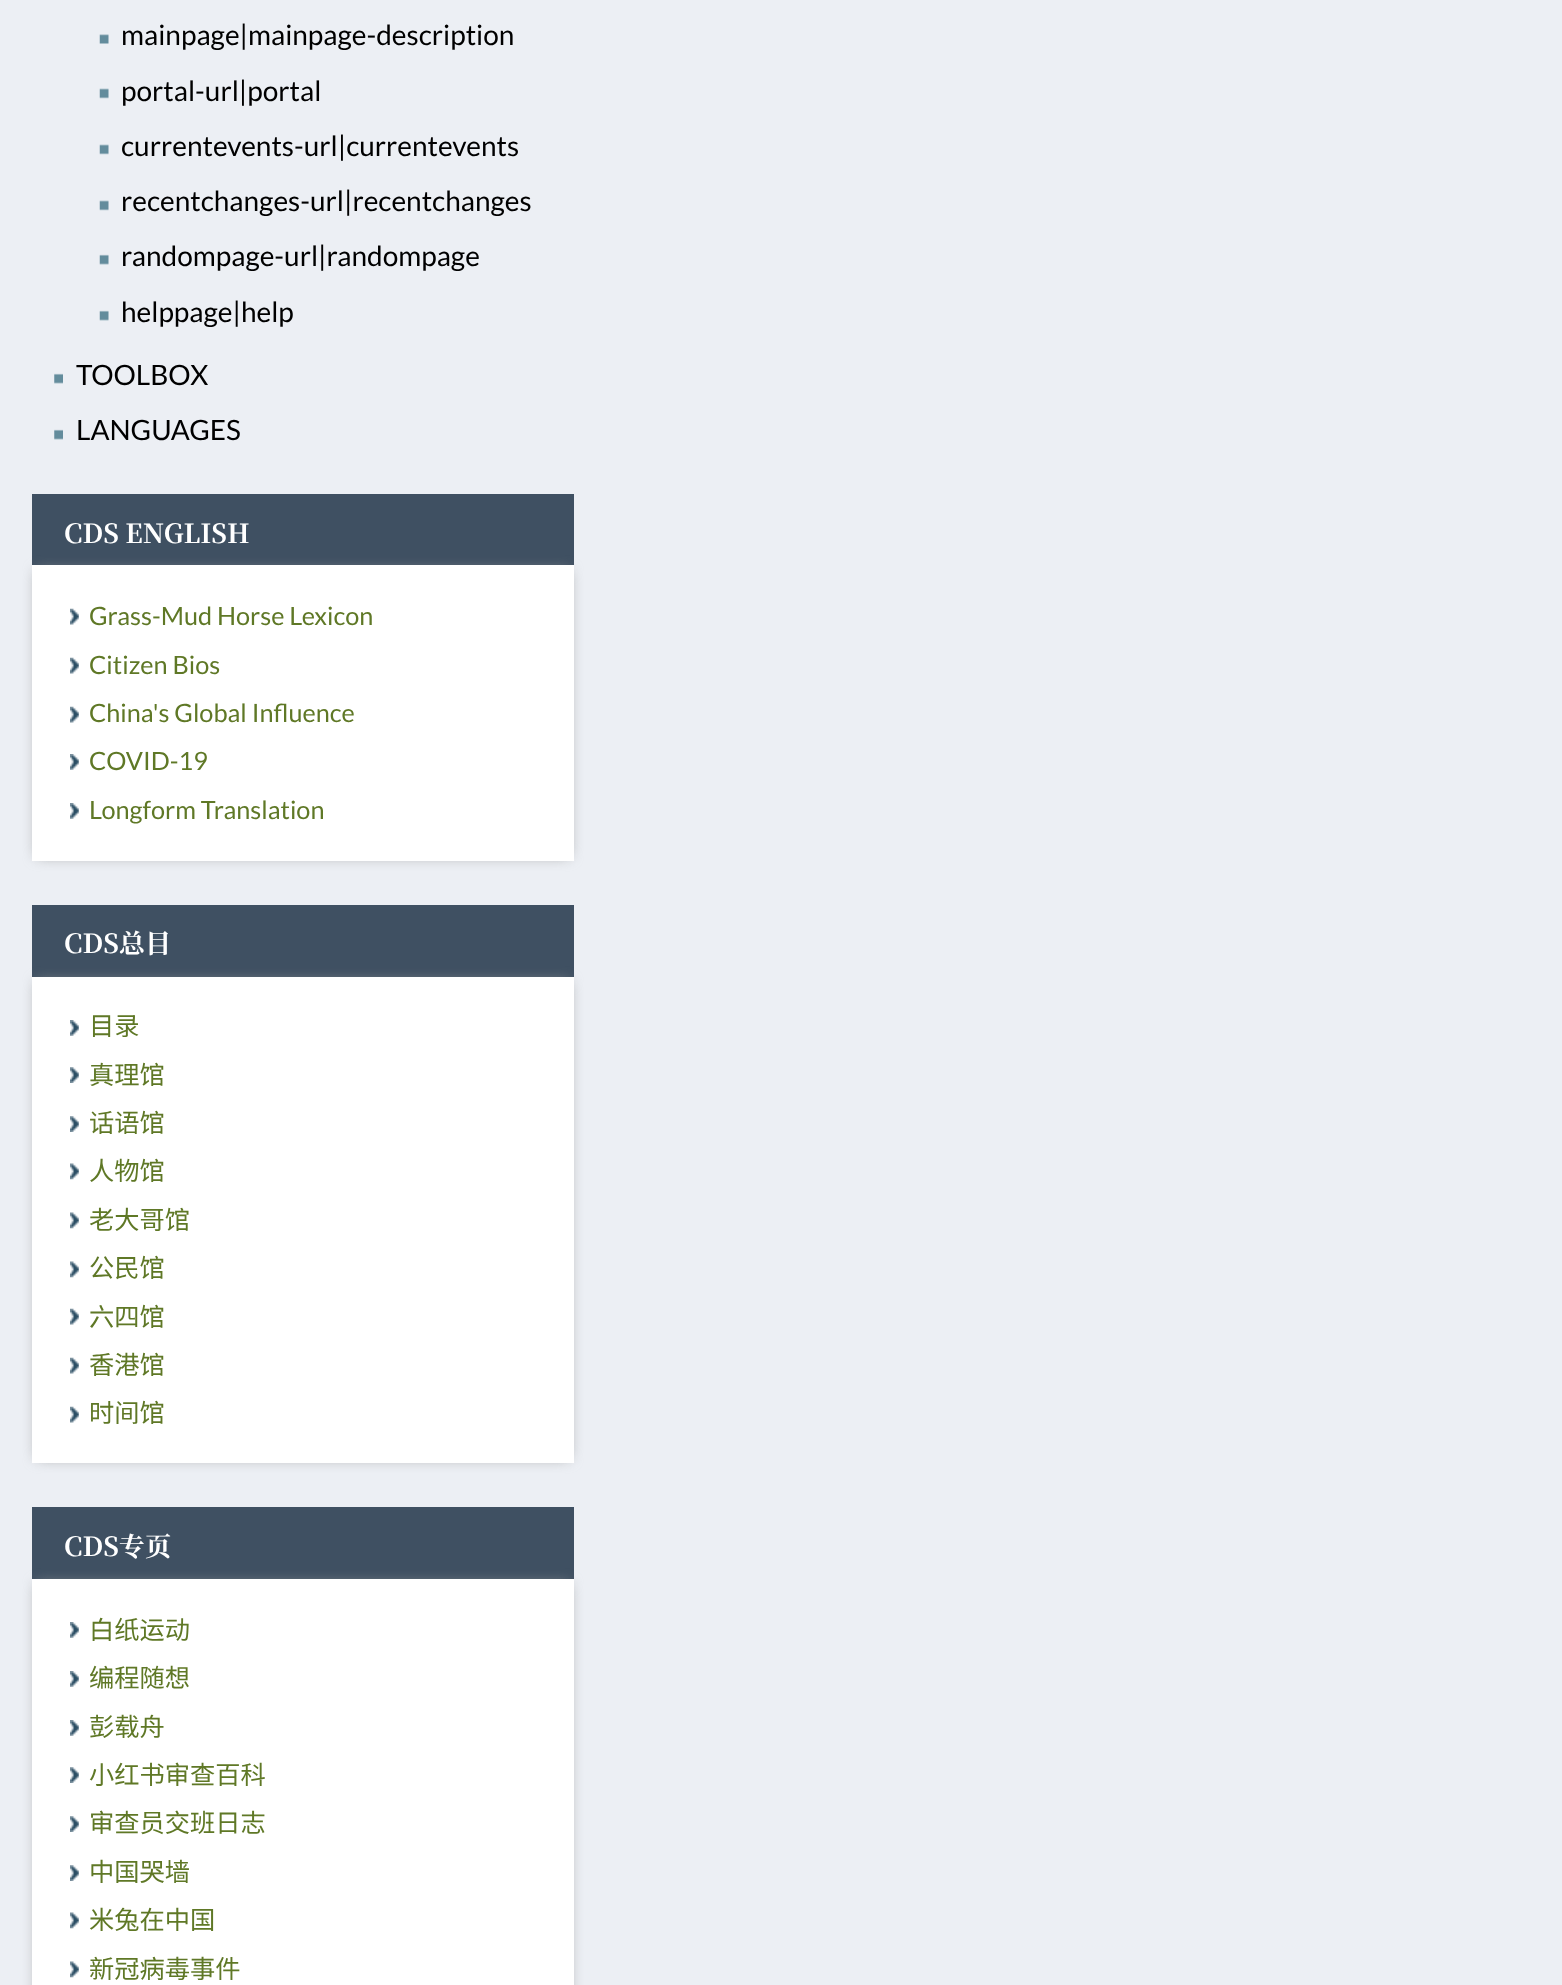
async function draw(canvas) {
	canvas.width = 1562;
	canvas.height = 1985;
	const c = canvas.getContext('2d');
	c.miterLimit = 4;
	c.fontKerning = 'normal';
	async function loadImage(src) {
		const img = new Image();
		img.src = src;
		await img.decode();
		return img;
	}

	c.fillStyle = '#eceff4';
	c.fillRect(0, 0, 1562, 1985);
	c.drawImage(await loadImage('img1.png'), 99, 34, 10, 10);
	c.font = '28px Lato';
	c.fillStyle = '#000';
	c.fillText('mainpage|mainpage-description', 121, 45);
	c.drawImage(await loadImage('img2.png'), 99, 88, 10, 11);
	c.fillText('portal-url|portal', 121, 101);
	c.drawImage(await loadImage('img2.png'), 99, 144, 10, 11);
	c.fillText('currentevents-url|currentevents', 121, 156);
	c.drawImage(await loadImage('img2.png'), 99, 200, 10, 11);
	c.fillText('recentchanges-url|recentchanges', 121, 211);
	c.drawImage(await loadImage('img3.png'), 99, 254, 10, 11);
	c.fillText('randompage-url|randompage', 121, 266);
	c.drawImage(await loadImage('img3.png'), 99, 310, 10, 11);
	c.fillText('helppage|help', 121, 322);
	c.drawImage(await loadImage('img4.png'), 54, 373, 9, 11);
	c.fillText('TOOLBOX', 76, 385);
	c.drawImage(await loadImage('img4.png'), 54, 429, 9, 11);
	c.fillText('LANGUAGES', 76, 440);
	c.fillStyle = '#3f5062';
	c.fillRect(32, 494, 542, 71);
	c.font = 'bold 26.25px Noto Serif SC';
	c.fillStyle = '#fff';
	c.fillText('CDS ENGLISH', 64, 543);
	c.fillStyle = '#999';
	c.filter = 'blur(7px)';
	c.beginPath();
	c.rect(37, 571, 532, 285);
	c.fill();
	c.filter = 'none';
	c.fillStyle = '#fff';
	c.fillRect(32, 565, 542, 296);
	c.drawImage(await loadImage('img5.png'), 70, 608, 9, 17);
	c.font = '25.25px Lato';
	c.fillStyle = '#5f7826';
	c.fillText('Grass-Mud Horse Lexicon', 89, 625);
	c.drawImage(await loadImage('img5.png'), 70, 657, 9, 17);
	c.fillText('Citizen Bios', 89, 674);
	c.drawImage(await loadImage('img5.png'), 70, 706, 9, 17);
	c.fillText('China\'s Global Influence', 89, 722);
	c.drawImage(await loadImage('img6.png'), 70, 754, 9, 16);
	c.fillText('COVID-19', 89, 770);
	c.drawImage(await loadImage('img6.png'), 70, 803, 9, 16);
	c.fillText('Longform Translation', 89, 819);
	c.fillStyle = '#3f5062';
	c.fillRect(32, 905, 542, 72);
	c.font = 'bold 26.25px Noto Serif SC';
	c.fillStyle = '#fff';
	c.fillText('CDS总目', 64, 953);
	c.fillStyle = '#999';
	c.filter = 'blur(7px)';
	c.beginPath();
	c.rect(37, 982, 532, 476);
	c.fill();
	c.filter = 'none';
	c.fillStyle = '#fff';
	c.fillRect(32, 977, 542, 486);
	c.drawImage(await loadImage('img6.png'), 70, 1020, 9, 16);
	c.font = '100 25.25px Noto Sans SC';
	c.fillStyle = '#5f7826';
	c.fillText('目录', 89, 1035);
	c.drawImage(await loadImage('img7.png'), 70, 1067, 9, 16);
	c.fillText('真理馆', 89, 1084);
	c.drawImage(await loadImage('img7.png'), 70, 1116, 9, 16);
	c.fillText('话语馆', 89, 1132);
	c.drawImage(await loadImage('img8.png'), 70, 1163, 9, 17);
	c.fillText('人物馆', 89, 1180);
	c.drawImage(await loadImage('img8.png'), 70, 1212, 9, 17);
	c.fillText('老大哥馆', 89, 1229);
	c.drawImage(await loadImage('img8.png'), 70, 1261, 9, 17);
	c.fillText('公民馆', 89, 1277);
	c.drawImage(await loadImage('img5.png'), 70, 1308, 9, 17);
	c.fillText('六四馆', 89, 1326);
	c.drawImage(await loadImage('img5.png'), 70, 1357, 9, 17);
	c.fillText('香港馆', 89, 1374);
	c.drawImage(await loadImage('img5.png'), 70, 1406, 9, 17);
	c.fillText('时间馆', 89, 1422);
	c.fillStyle = '#3f5062';
	c.fillRect(32, 1507, 542, 72);
	c.font = 'bold 26.25px Noto Serif SC';
	c.fillStyle = '#fff';
	c.fillText('CDS专页', 64, 1556);
	c.fillStyle = '#999';
	c.filter = 'blur(7px)';
	c.beginPath();
	c.rect(37, 1584, 532, 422);
	c.fill();
	c.filter = 'none';
	c.fillStyle = '#fff';
	c.fillRect(32, 1579, 542, 406);
	c.drawImage(await loadImage('img6.png'), 70, 1622, 9, 16);
	c.font = '100 25.25px Noto Sans SC';
	c.fillStyle = '#5f7826';
	c.fillText('白纸运动', 89, 1639);
	c.drawImage(await loadImage('img6.png'), 70, 1671, 9, 16);
	c.fillText('编程随想', 89, 1687);
	c.drawImage(await loadImage('img6.png'), 70, 1720, 9, 16);
	c.fillText('彭载舟', 89, 1736);
	c.drawImage(await loadImage('img7.png'), 70, 1767, 9, 16);
	c.fillText('小红书审查百科', 89, 1784);
	c.drawImage(await loadImage('img7.png'), 70, 1816, 9, 16);
	c.fillText('审查员交班日志', 89, 1832);
	c.drawImage(await loadImage('img7.png'), 70, 1865, 9, 16);
	c.fillText('中国哭墙', 89, 1881);
	c.drawImage(await loadImage('img8.png'), 70, 1912, 9, 17);
	c.fillText('米兔在中国', 89, 1929);
	c.drawImage(await loadImage('img8.png'), 70, 1961, 9, 17);
	c.fillText('新冠病毒事件', 89, 1978);
}

draw(document.querySelector('canvas'));
